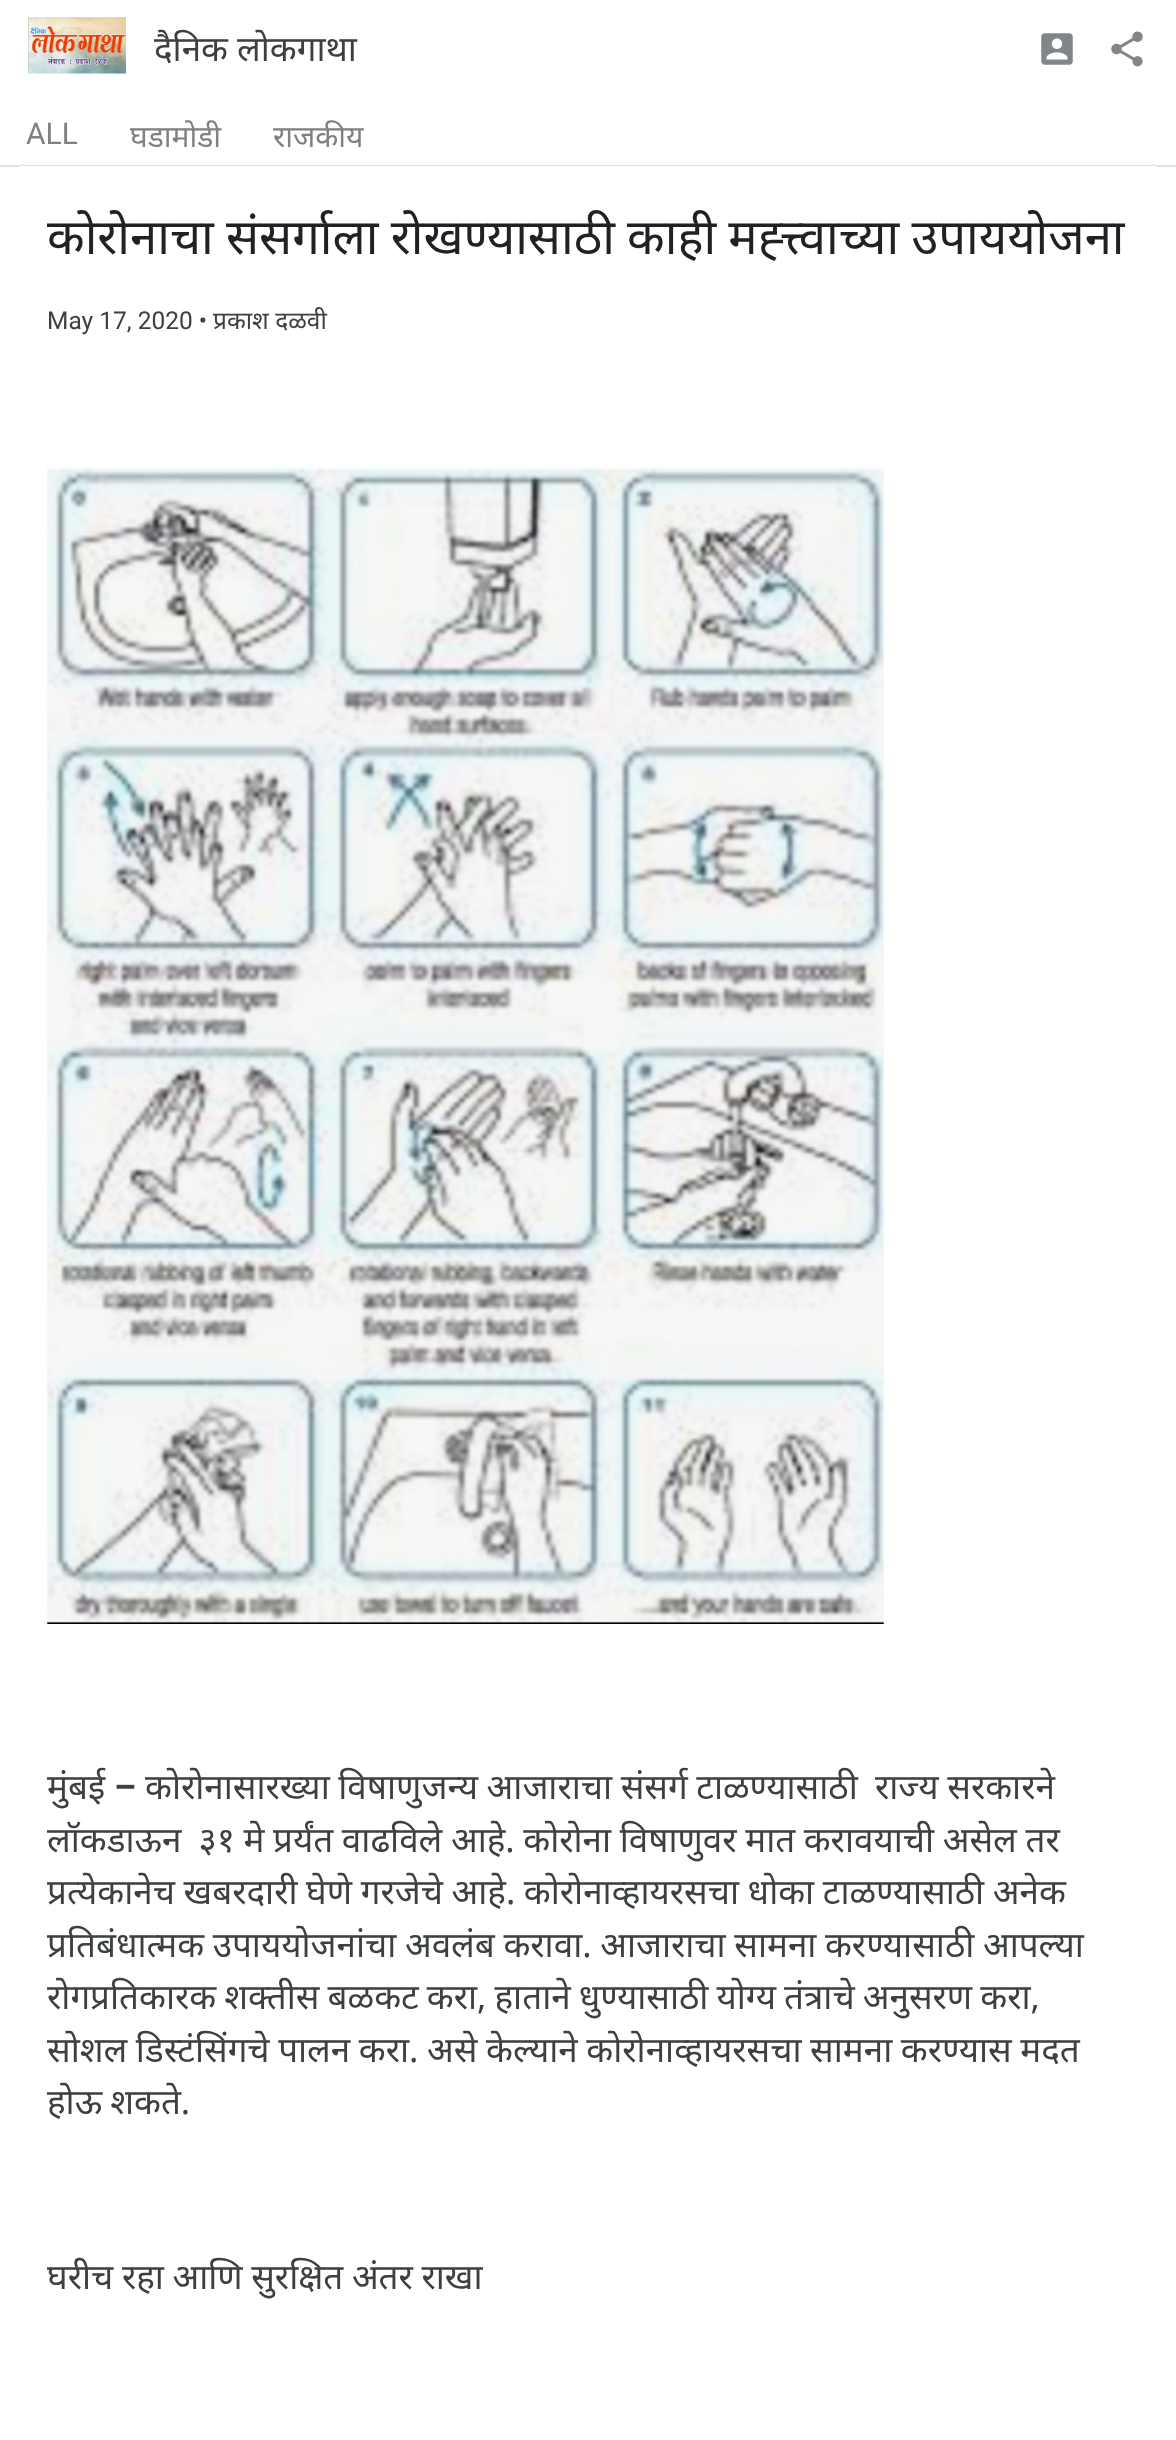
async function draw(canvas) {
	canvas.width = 1176;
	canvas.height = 2440;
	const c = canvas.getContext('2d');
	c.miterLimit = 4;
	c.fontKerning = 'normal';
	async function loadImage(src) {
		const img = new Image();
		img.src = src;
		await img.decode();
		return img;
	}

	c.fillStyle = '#fff';
	c.fillRect(0, 0, 1176, 2440);
	c.fillStyle = '#e0e0e0';
	c.fillRect(0, 165, 1176, 2);
	c.drawImage(await loadImage('img1.png'), 28, 17, 98, 57);
	c.font = '35px Noto Sans';
	c.fillStyle = '#3c4043';
	c.fillText('दैनिक लोकगाथा', 154, 61);
	c.drawImage(await loadImage('img2.png'), 1041, 33, 32, 32);
	c.drawImage(await loadImage('img3.png'), 1111, 31, 32, 36);
	c.font = '30px Roboto';
	c.fillStyle = '#808080';
	c.fillText('ALL', 26, 144);
	c.font = '30px Noto Sans';
	c.fillText('घडामोडी', 130, 147);
	c.fillText('राजकीय', 273, 147);
	c.fillStyle = '#fff';
	c.fillRect(19, 166, 1138, 1);
	c.save();
	c.beginPath();
	c.rect(47, 201, 1082, 74);
	c.clip();
	c.wordSpacing = '-0.5px';
	c.font = '49px Noto Sans';
	c.fillStyle = '#202124';
	c.fillText('कोरोनाचा संसर्गाला रोखण्यासाठी काही मह्त्त्वाच्या उपाययोजना', 47, 254);
	c.restore();
	c.font = '24.5px Roboto';
	c.fillStyle = '#3c4043';
	c.fillText('May 17, 2020 •', 47, 329);
	c.font = '24.5px Noto Sans';
	c.fillText('प्रकाश दळवी', 213, 329);
	c.drawImage(await loadImage('img4.png'), 47, 465, 837, 1159);
	c.font = '35px Noto Sans';
	c.fillText('मुंबई', 47, 1799);
	c.font = 'bold 35px Roboto';
	c.fillText('–', 114, 1799);
	c.wordSpacing = '-0.5px';
	c.font = '35px Noto Sans';
	for (const [text, x, y] of [
		['कोरोनासारख्या विषाणुजन्य आजाराचा संसर्ग टाळण्यासाठी  राज्य सरकारने', 145, 1799],
		['लॉकडाऊन  ३१ मे प्रर्यंत वाढविले आहे. कोरोना विषाणुवर मात करावयाची असेल तर', 47, 1852],
		['प्रत्येकानेच खबरदारी घेणे गरजेचे आहे. कोरोनाव्हायरसचा धोका टाळण्यासाठी अनेक', 47, 1904],
		['प्रतिबंधात्मक उपाययोजनांचा अवलंब करावा. आजाराचा सामना करण्यासाठी आपल्या', 47, 1957],
	]) {
		c.fillText(text, x, y);
	}
	c.wordSpacing = '-1px';
	c.fillText('रोगप्रतिकारक शक्तीस बळकट करा, हाताने धुण्यासाठी योग्य तंत्राचे अनुसरण करा,', 47, 2009);
	c.wordSpacing = '-0.5px';
	c.fillText('सोशल डिस्टंसिंगचे पालन करा. असे केल्याने कोरोनाव्हायरसचा सामना करण्यास मदत', 47, 2062);
	c.wordSpacing = '-1px';
	c.fillText('होऊ शकते.', 47, 2114);
	c.wordSpacing = '-0.5px';
	c.fillText('घरीच रहा आणि सुरक्षित अंतर राखा', 47, 2289);
}

draw(document.querySelector('canvas'));
